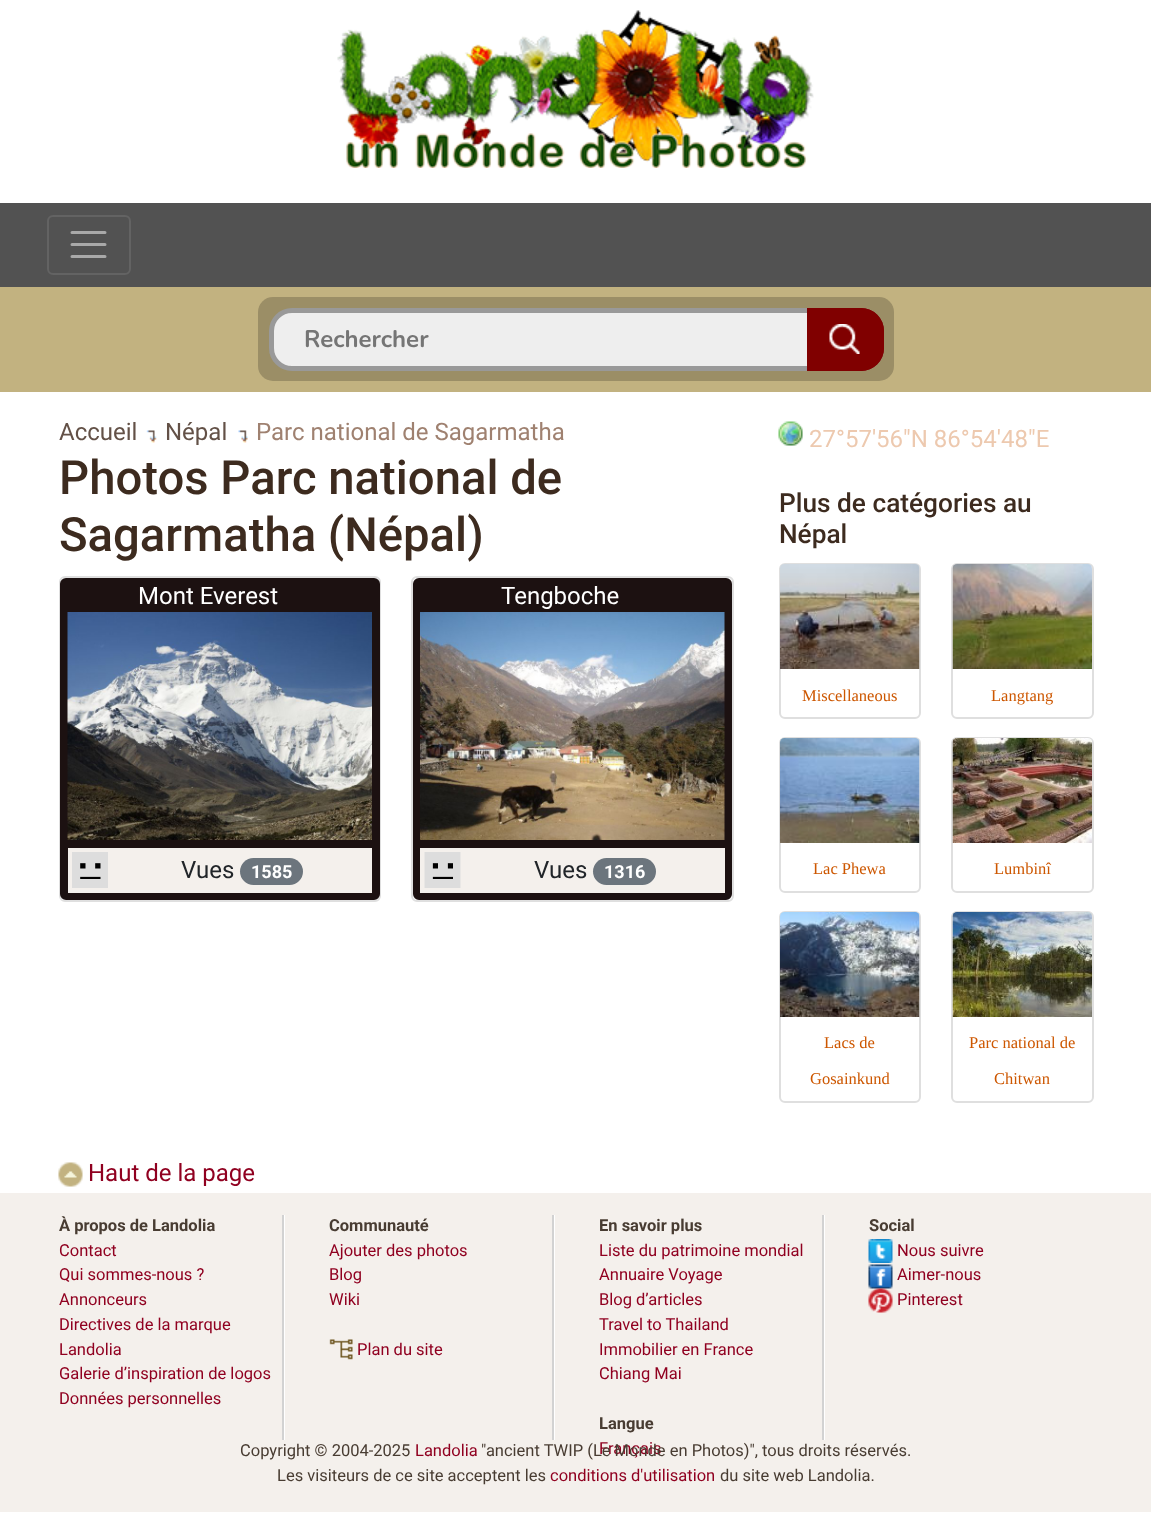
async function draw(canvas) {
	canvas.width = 1151;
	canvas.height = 1531;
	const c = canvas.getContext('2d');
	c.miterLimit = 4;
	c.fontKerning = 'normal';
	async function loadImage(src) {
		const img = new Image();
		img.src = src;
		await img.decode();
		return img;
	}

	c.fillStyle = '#fff';
	c.fillRect(0, 0, 1151, 1531);
	c.drawImage(await loadImage('img1.png'), 337, 10, 477, 158);
	c.fillStyle = '#525252';
	c.fillRect(0, 203, 1151, 84);
	c.beginPath();
	c.roundRect(48, 216, 82, 58, 5);
	c.strokeStyle = '#636363';
	c.lineWidth = 2;
	c.stroke();
	c.beginPath();
	c.moveTo(72, 232.5);
	c.lineTo(105, 232.5);
	c.moveTo(72, 244.5);
	c.lineTo(105, 244.5);
	c.moveTo(72, 256.5);
	c.lineTo(105, 256.5);
	c.strokeStyle = '#a9a9a9';
	c.lineWidth = 3;
	c.lineCap = 'round';
	c.stroke();
	c.fillStyle = '#c2b280';
	c.fillRect(0, 287, 1151, 105);
	c.fillStyle = '#9b8e66';
	c.beginPath();
	c.roundRect(258, 297, 636, 84, 15);
	c.fill();
	c.fillStyle = '#eee';
	c.beginPath();
	c.roundRect(271.5, 310.5, 610, 58, 20.5);
	c.fill();
	c.strokeStyle = '#999';
	c.lineWidth = 5;
	c.stroke();
	c.font = 'bold 24px Nunito';
	c.fillStyle = '#757575';
	c.fillText('Rechercher', 304, 347);
	c.fillStyle = '#800000';
	c.beginPath();
	c.roundRect(807, 308, 77, 63, [0, 23, 23, 0]);
	c.fill();
	c.drawImage(await loadImage('img2.png'), 829, 324, 31, 30);
	c.beginPath();
	c.roundRect(808, 309, 75, 61, [0, 22, 22, 0]);
	c.strokeStyle = '#800000';
	c.lineWidth = 2;
	c.stroke();
	c.font = '24px Roboto';
	c.fillStyle = '#635147';
	c.fillText('Accueil', 59, 440);
	c.drawImage(await loadImage('img3.png'), 146, 430, 11, 13);
	c.fillText('Népal', 165, 440);
	c.drawImage(await loadImage('img4.png'), 238, 430, 10, 13);
	c.fillStyle = '#9f8170';
	c.fillText('Parc national de Sagarmatha', 256, 440);
	c.font = '500 47.25px Roboto';
	c.fillStyle = '#3d2b1f';
	c.fillText('Photos Parc national de', 59, 494);
	c.fillText('Sagarmatha (Népal)', 59, 551);
	c.beginPath();
	c.roundRect(60, 577, 320, 324, 5);
	c.strokeStyle = '#dfdfdf';
	c.stroke();
	c.fillStyle = '#1c1111';
	c.beginPath();
	c.roundRect(61, 579, 318, 320, 5);
	c.fill();
	c.strokeStyle = '#1c1111';
	c.stroke();
	c.font = '24px Roboto';
	c.fillStyle = '#fff';
	c.fillText('Mont Everest', 138, 604);
	c.drawImage(await loadImage('img5.png'), 67, 612, 305, 228);
	c.fillStyle = '#f4f0ec';
	c.fillRect(68, 848, 304, 45);
	c.drawImage(await loadImage('img6.png'), 72, 852, 36, 36);
	c.fillStyle = '#212529';
	c.fillText('Vues', 181, 878);
	c.fillStyle = '#6c757d';
	c.beginPath();
	c.roundRect(240, 858, 63, 27, 13.5);
	c.fill();
	c.font = 'bold 18px Roboto';
	c.fillStyle = '#fff';
	c.fillText('1585', 251, 878);
	c.beginPath();
	c.roundRect(412, 577, 321, 324, 5);
	c.strokeStyle = '#dfdfdf';
	c.stroke();
	c.fillStyle = '#1c1111';
	c.beginPath();
	c.roundRect(414, 579, 317, 320, 5);
	c.fill();
	c.strokeStyle = '#1c1111';
	c.stroke();
	c.font = '24px Roboto';
	c.fillStyle = '#fff';
	c.fillText('Tengboche', 501, 604);
	c.drawImage(await loadImage('img7.png'), 420, 612, 305, 228);
	c.fillStyle = '#f4f0ec';
	c.fillRect(420, 848, 305, 45);
	c.drawImage(await loadImage('img8.png'), 424, 852, 37, 36);
	c.fillStyle = '#212529';
	c.fillText('Vues', 534, 878);
	c.fillStyle = '#6c757d';
	c.beginPath();
	c.roundRect(593, 858, 63, 27, 13.5);
	c.fill();
	c.font = 'bold 18px Roboto';
	c.fillStyle = '#fff';
	c.fillText('1316', 604, 878);
	c.drawImage(await loadImage('img9.png'), 778, 421, 25, 25);
	c.font = '24px Roboto';
	c.fillStyle = '#edc9af';
	c.fillText('27°57\'56"N 86°54\'48"E', 809, 447);
	c.font = '500 26.25px Roboto';
	c.fillStyle = '#3d2b1f';
	c.fillText('Plus de catégories au', 779, 512);
	c.fillText('Népal', 779, 543);
	c.beginPath();
	c.roundRect(780, 564, 140, 154, 5);
	c.strokeStyle = '#dfdfdf';
	c.stroke();
	c.drawImage(await loadImage('img10.png'), 780, 564, 140, 105);
	c.font = '16.5px Liberation Serif';
	c.fillStyle = '#cd5700';
	c.fillText('Miscellaneous', 802, 701);
	c.beginPath();
	c.roundRect(952, 564, 141, 154, 5);
	c.stroke();
	c.drawImage(await loadImage('img11.png'), 952, 564, 140, 105);
	c.fillText('Langtang', 991, 701);
	c.beginPath();
	c.roundRect(780, 738, 140, 154, 5);
	c.stroke();
	c.drawImage(await loadImage('img12.png'), 780, 738, 140, 105);
	c.fillText('Lac Phewa', 813, 874);
	c.beginPath();
	c.roundRect(952, 738, 141, 154, 5);
	c.stroke();
	c.drawImage(await loadImage('img13.png'), 952, 738, 140, 105);
	c.fillText('Lumbinî', 994, 874);
	c.beginPath();
	c.roundRect(780, 912, 140, 190, 5);
	c.stroke();
	c.drawImage(await loadImage('img14.png'), 780, 912, 140, 105);
	c.fillText('Lacs de', 824, 1048);
	c.fillText('Gosainkund', 810, 1084);
	c.beginPath();
	c.roundRect(952, 912, 141, 190, 5);
	c.stroke();
	c.drawImage(await loadImage('img15.png'), 952, 912, 140, 105);
	c.fillText('Parc national de', 969, 1048);
	c.fillText('Chitwan', 994, 1084);
	c.drawImage(await loadImage('img16.png'), 58, 1162, 25, 25);
	c.font = '24px Roboto';
	c.fillStyle = '#900020';
	c.fillText('Haut de la page', 88, 1181);
	for (const [x, y, w, h, color] of [
		[0, 1193, 1151, 319, '#f4f0ec'],
		[284, 1215, 1, 225, '#fff'],
		[282, 1215, 2, 225, '#d2d2d2'],
	]) {
		c.fillStyle = color;
		c.fillRect(x, y, w, h);
	}
	c.font = 'bold 16.5px Roboto';
	c.fillStyle = '#483c32';
	c.fillText('À propos de Landolia', 59, 1231);
	c.font = '16.5px Roboto';
	c.fillStyle = '#900020';
	for (const [text, x, y] of [
		['Contact', 59, 1256],
		['Qui sommes-nous ?', 59, 1280],
		['Annonceurs', 59, 1305],
		['Directives de la marque', 59, 1330],
		['Landolia', 59, 1355],
		['Galerie d’inspiration de logos', 59, 1379],
		['Données personnelles', 59, 1404],
	]) {
		c.fillText(text, x, y);
	}
	c.fillStyle = '#fff';
	c.fillRect(554, 1215, 1, 225);
	c.fillStyle = '#d2d2d2';
	c.fillRect(552, 1215, 2, 225);
	c.font = 'bold 16.5px Roboto';
	c.fillStyle = '#483c32';
	c.fillText('Communauté', 329, 1231);
	c.font = '16.5px Roboto';
	c.fillStyle = '#900020';
	for (const [text, x, y] of [
		['Ajouter des photos', 329, 1256],
		['Blog', 329, 1280],
		['Wiki', 329, 1305],
	]) {
		c.fillText(text, x, y);
	}
	c.drawImage(await loadImage('img17.png'), 329, 1339, 24, 21);
	c.fillText('Plan du site', 357, 1355);
	c.fillStyle = '#fff';
	c.fillRect(824, 1215, 1, 225);
	c.fillStyle = '#d2d2d2';
	c.fillRect(822, 1215, 2, 225);
	c.font = 'bold 16.5px Roboto';
	c.fillStyle = '#483c32';
	c.fillText('En savoir plus', 599, 1231);
	c.font = '16.5px Roboto';
	c.fillStyle = '#900020';
	for (const [text, x, y] of [
		['Liste du patrimoine mondial', 599, 1256],
		['Annuaire Voyage', 599, 1280],
		['Blog d’articles', 599, 1305],
		['Travel to Thailand', 599, 1330],
		['Immobilier en France', 599, 1355],
		['Chiang Mai', 599, 1379],
	]) {
		c.fillText(text, x, y);
	}
	c.font = 'bold 16.5px Roboto';
	c.fillStyle = '#483c32';
	c.fillText('Langue', 599, 1429);
	c.font = '16.5px Roboto';
	c.fillStyle = '#900020';
	c.fillText('Français', 599, 1454);
	c.font = 'bold 16.5px Roboto';
	c.fillStyle = '#483c32';
	c.fillText('Social', 869, 1231);
	c.drawImage(await loadImage('img18.png'), 868, 1239, 25, 24);
	c.font = '16.5px Roboto';
	c.fillStyle = '#900020';
	c.fillText('Nous suivre', 897, 1256);
	c.drawImage(await loadImage('img19.png'), 868, 1264, 25, 25);
	c.fillText('Aimer-nous', 897, 1280);
	c.drawImage(await loadImage('img20.png'), 868, 1288, 25, 25);
	c.fillText('Pinterest', 897, 1305);
	c.fillStyle = '#483c32';
	c.fillText('Copyright © 2004-2025', 240, 1456);
	c.fillStyle = '#900020';
	c.fillText('Landolia', 415, 1456);
	c.fillStyle = '#483c32';
	c.fillText('"ancient TWIP (Le Monde en Photos)", tous droits réservés.', 481, 1456);
	c.fillText('Les visiteurs de ce site acceptent les', 277, 1481);
	c.fillStyle = '#900020';
	c.fillText('conditions d\'utilisation', 550, 1481);
	c.fillStyle = '#483c32';
	c.fillText('du site web Landolia.', 720, 1481);
}

draw(document.querySelector('canvas'));
